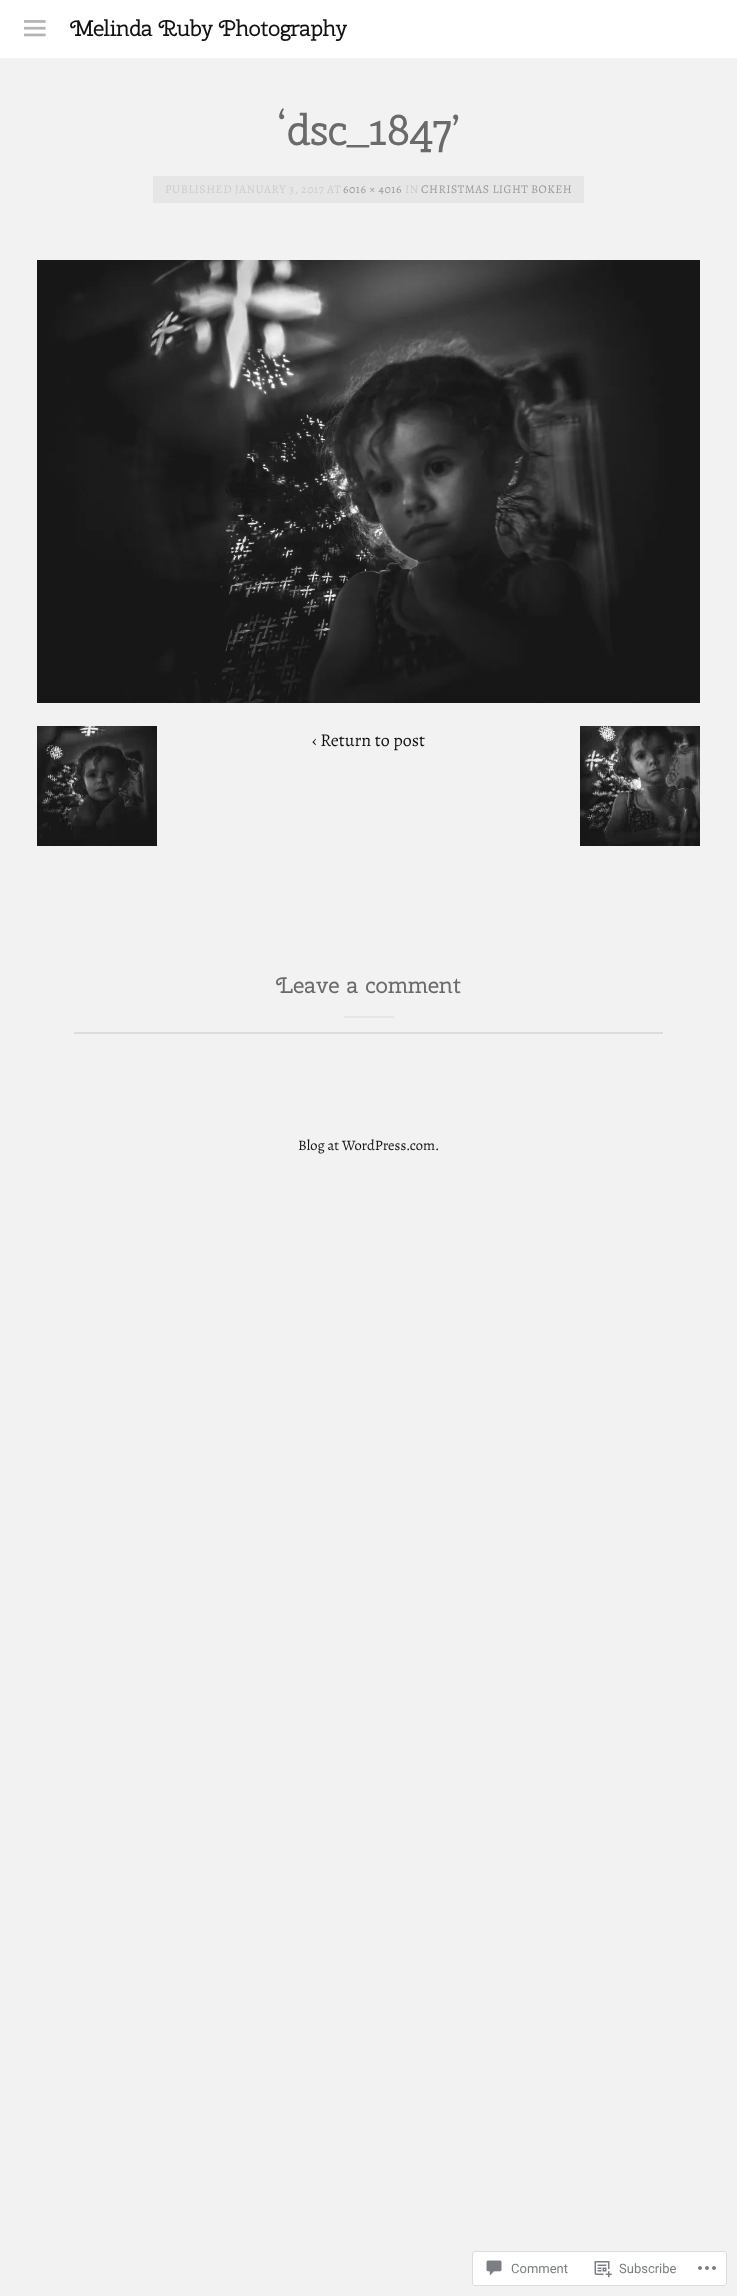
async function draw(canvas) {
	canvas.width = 737;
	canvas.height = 2296;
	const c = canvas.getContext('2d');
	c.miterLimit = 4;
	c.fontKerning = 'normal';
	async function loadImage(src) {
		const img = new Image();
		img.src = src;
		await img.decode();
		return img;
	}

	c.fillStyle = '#f2f2f2';
	c.fillRect(0, 0, 737, 2296);
	c.fillStyle = '#fff';
	c.fillRect(0, 0, 737, 58);
	c.drawImage(await loadImage('img1.png'), 24, 20, 22, 17);
	c.letterSpacing = '-0.6px';
	c.font = '22.4px Cherry Swash';
	c.fillStyle = '#111';
	c.fillText('Melinda Ruby Photography', 70, 36);
	c.letterSpacing = '-1px';
	c.font = '43px Cherry Swash';
	c.fillStyle = '#6a6a6a';
	c.fillText('‘dsc_1847’', 277, 145);
	c.fillStyle = '#e6e6e6';
	c.fillRect(153, 176, 431, 27);
	c.letterSpacing = '0.5px';
	c.font = '11.9px Alegreya';
	c.fillStyle = '#ccc';
	c.fillText('PUBLISHED JANUARY 3, 2017 AT', 165, 193);
	c.fillStyle = '#999';
	c.fillText('6016 × 4016', 343, 193);
	c.fillStyle = '#ccc';
	c.fillText('IN', 405, 193);
	c.fillStyle = '#999';
	c.fillText('CHRISTMAS LIGHT BOKEH', 421, 193);
	c.drawImage(await loadImage('img2.png'), 37, 260, 663, 443);
	c.drawImage(await loadImage('img3.png'), 37, 726, 120, 120);
	c.letterSpacing = '0px';
	c.font = '18px Alegreya';
	c.fillStyle = '#111';
	c.fillText('‹ Return to post', 312, 746);
	c.drawImage(await loadImage('img4.png'), 580, 726, 120, 120);
	c.font = '22.4px Cherry Swash';
	c.fillStyle = '#6a6a6a';
	c.fillText('Leave a comment', 276, 993);
	c.fillStyle = '#e6e6e6';
	c.fillRect(344, 1016, 50, 2);
	c.fillStyle = '#dcdcde';
	c.fillRect(74, 1032, 589, 2);
	c.font = '14.5px Alegreya';
	c.fillStyle = '#111';
	c.fillText('Blog at WordPress.com.', 298, 1150);
	c.fillStyle = '#fff';
	c.beginPath();
	c.roundRect(472.5, 2251.5, 254, 34, 2.5);
	c.fill();
	c.strokeStyle = '#dcdcde';
	c.stroke();
	c.drawImage(await loadImage('img5.png'), 486, 2260, 16, 16);
	c.font = '13px Roboto';
	c.fillStyle = '#7a7e84';
	c.fillText('Comment', 511, 2273);
	c.drawImage(await loadImage('img6.png'), 594, 2261, 18, 17);
	c.fillText('Subscribe', 619, 2273);
	c.drawImage(await loadImage('img7.png'), 698, 2266, 18, 4);
}

draw(document.querySelector('canvas'));
